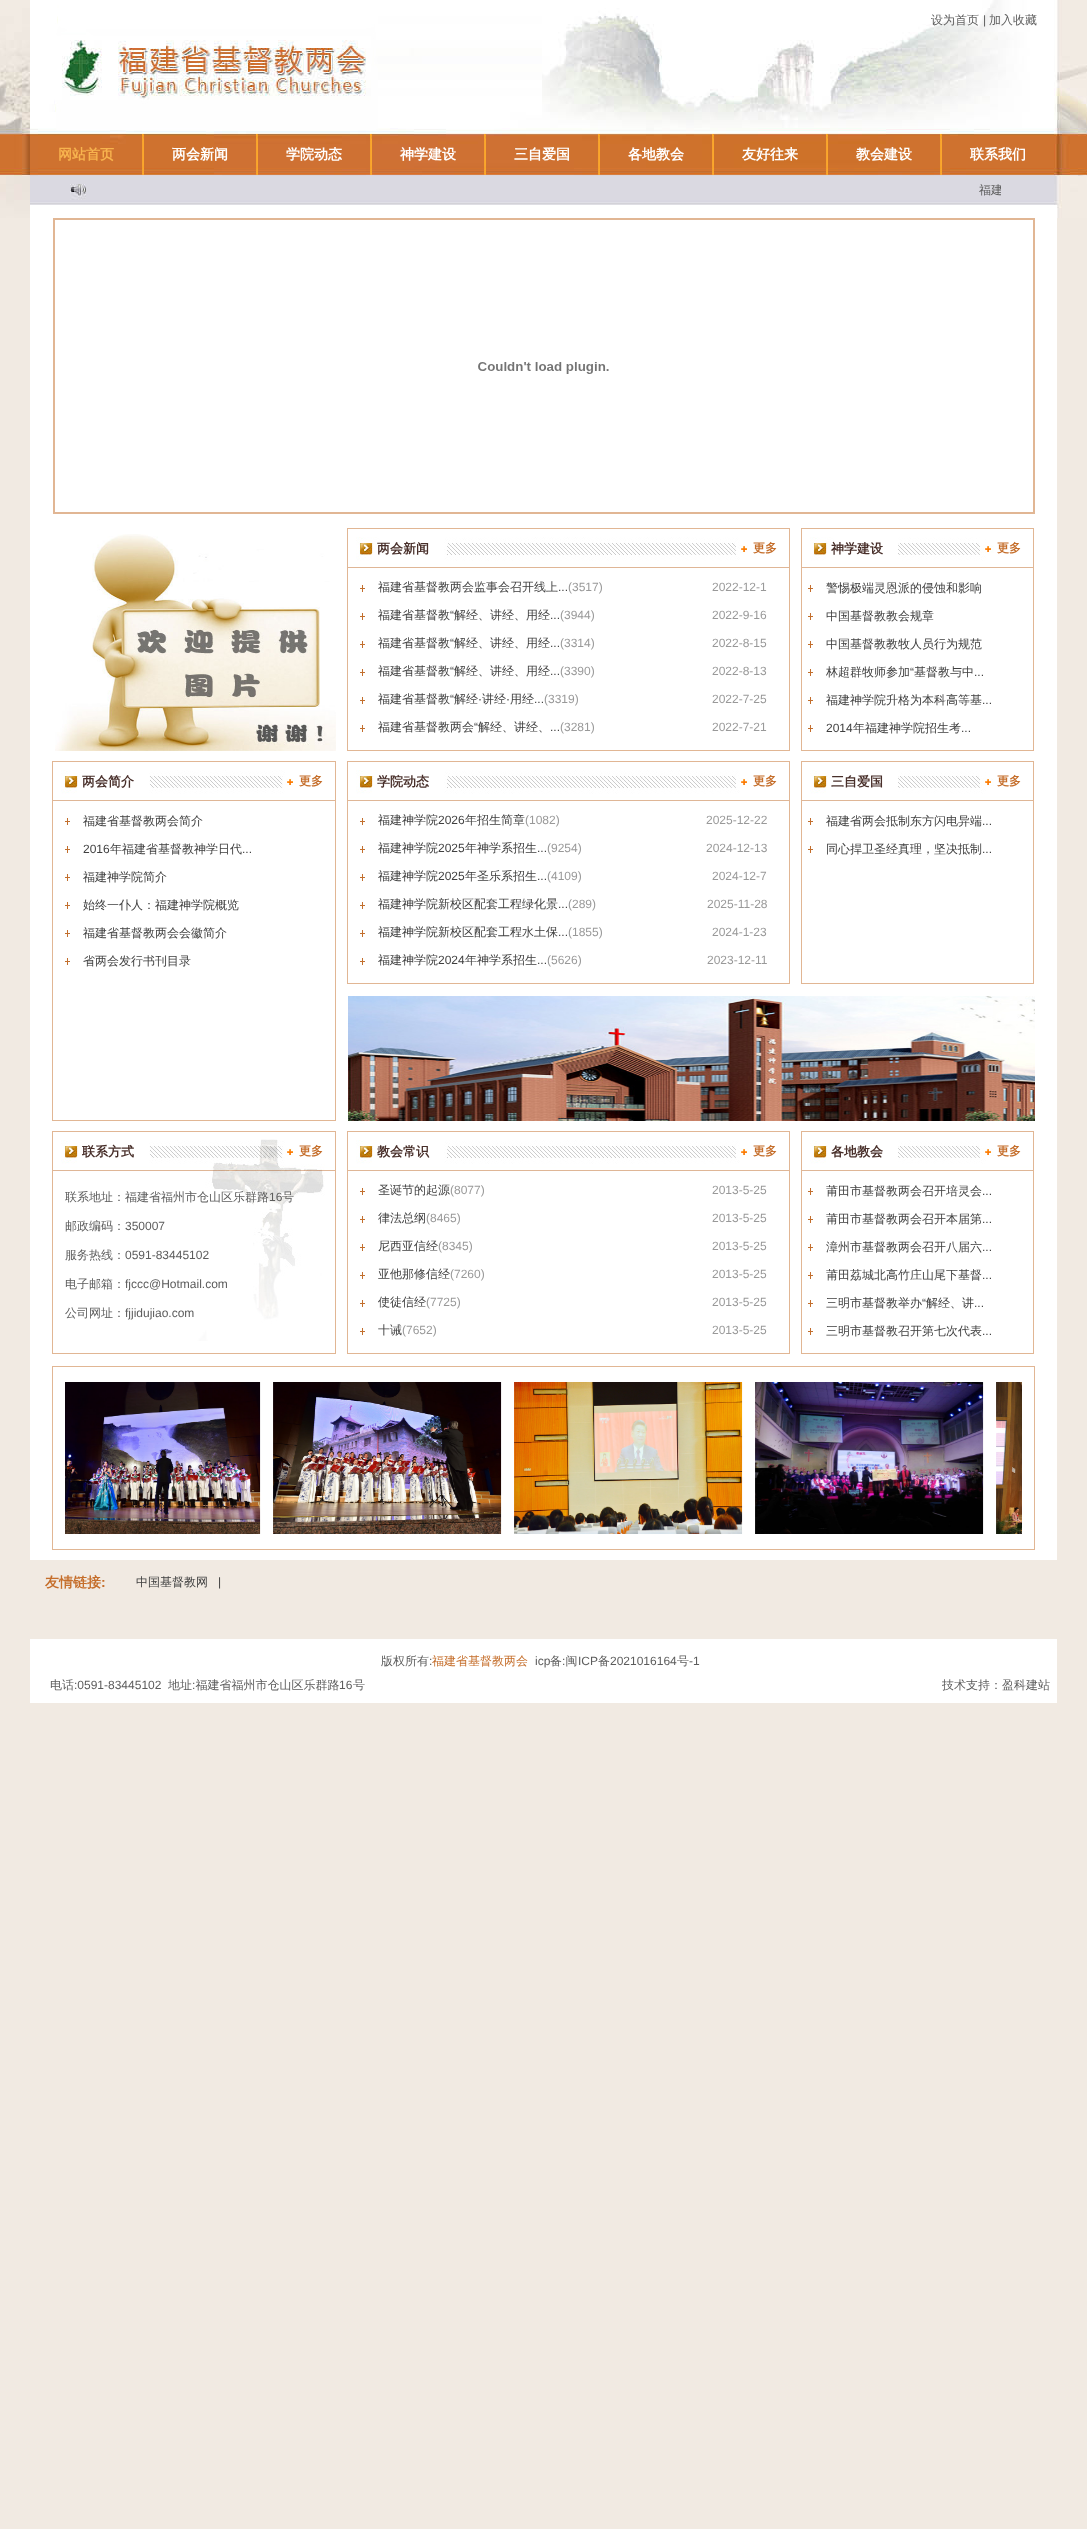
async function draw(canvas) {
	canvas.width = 1087;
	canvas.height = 2529;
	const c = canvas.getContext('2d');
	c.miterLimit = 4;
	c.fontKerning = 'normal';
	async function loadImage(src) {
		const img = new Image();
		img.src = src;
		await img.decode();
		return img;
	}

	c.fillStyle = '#f1eae2';
	c.fillRect(0, 0, 1087, 2529);
	c.drawImage(await loadImage('img1.png'), 0, 0, 1087, 218);
	c.font = '500 12px WenQuanYi Zen Hei';
	c.fillStyle = '#5c5c5c';
	c.fillText('设为首页', 931, 24);
	c.font = '12px Liberation Sans';
	c.fillText('|', 983, 24);
	c.font = '500 12px WenQuanYi Zen Hei';
	c.fillText('加入收藏', 989, 24);
	c.drawImage(await loadImage('img2.png'), 142, 134, 2, 41);
	c.font = 'bold 14px WenQuanYi Zen Hei';
	c.fillStyle = '#f7b34e';
	c.fillText('网站首页', 58, 159);
	c.drawImage(await loadImage('img2.png'), 256, 134, 2, 41);
	c.fillStyle = '#fff';
	c.fillText('两会新闻', 172, 159);
	c.drawImage(await loadImage('img2.png'), 370, 134, 2, 41);
	c.fillText('学院动态', 286, 159);
	c.drawImage(await loadImage('img2.png'), 484, 134, 2, 41);
	c.fillText('神学建设', 400, 159);
	c.drawImage(await loadImage('img2.png'), 598, 134, 2, 41);
	c.fillText('三自爱国', 514, 159);
	c.drawImage(await loadImage('img2.png'), 712, 134, 2, 41);
	c.fillText('各地教会', 628, 159);
	c.drawImage(await loadImage('img2.png'), 826, 134, 2, 41);
	c.fillText('友好往来', 742, 159);
	c.drawImage(await loadImage('img2.png'), 940, 134, 2, 41);
	c.fillText('教会建设', 856, 159);
	c.fillText('联系我们', 970, 159);
	c.save();
	c.beginPath();
	c.rect(87, 175, 914, 30);
	c.clip();
	c.font = '500 12px WenQuanYi Zen Hei';
	c.fillStyle = '#5c5c5c';
	c.fillText('福建', 979, 194);
	c.restore();
	c.fillRect(30, 205, 1027, 1355);
	c.strokeStyle = '#e1b694';
	c.lineWidth = 2;
	c.strokeRect(54, 219, 980, 294);
	c.drawImage(await loadImage('img3.png'), 478, 362, 131, 12);
	c.drawImage(await loadImage('img4.png'), 55, 534, 281, 217);
	c.lineWidth = 1;
	c.strokeRect(347.5, 528.5, 442, 222);
	c.drawImage(await loadImage('img5.png'), 348, 537, 441, 31);
	c.font = 'bold 13px WenQuanYi Zen Hei';
	c.fillStyle = '#482f2a';
	c.fillText('两会新闻', 377, 553);
	c.font = 'bold 12px WenQuanYi Zen Hei';
	c.fillStyle = '#c56e2b';
	c.fillText('更多', 753, 552);
	c.drawImage(await loadImage('img6.png'), 360, 585, 5, 7);
	c.font = '500 12px WenQuanYi Zen Hei';
	c.fillStyle = '#404040';
	c.fillText('福建省基督教两会监事会召开线上', 378, 591);
	c.font = '12px Liberation Sans';
	c.fillText('...', 558, 591);
	c.fillStyle = '#999';
	c.fillText('(3517)', 568, 591);
	c.fillText('2022-12-1', 712, 591);
	c.drawImage(await loadImage('img6.png'), 360, 613, 5, 7);
	c.font = '500 12px WenQuanYi Zen Hei';
	c.fillStyle = '#404040';
	c.fillText('福建省基督教', 378, 619);
	c.font = '12px Liberation Sans';
	c.fillText('“', 450, 619);
	c.font = '500 12px WenQuanYi Zen Hei';
	c.fillText('解经、讲经、用经', 454, 619);
	c.font = '12px Liberation Sans';
	c.fillText('...', 550, 619);
	c.fillStyle = '#999';
	c.fillText('(3944)', 560, 619);
	c.fillText('2022-9-16', 712, 619);
	c.drawImage(await loadImage('img6.png'), 360, 641, 5, 7);
	c.font = '500 12px WenQuanYi Zen Hei';
	c.fillStyle = '#404040';
	c.fillText('福建省基督教', 378, 647);
	c.font = '12px Liberation Sans';
	c.fillText('“', 450, 647);
	c.font = '500 12px WenQuanYi Zen Hei';
	c.fillText('解经、讲经、用经', 454, 647);
	c.font = '12px Liberation Sans';
	c.fillText('...', 550, 647);
	c.fillStyle = '#999';
	c.fillText('(3314)', 560, 647);
	c.fillText('2022-8-15', 712, 647);
	c.drawImage(await loadImage('img6.png'), 360, 669, 5, 7);
	c.font = '500 12px WenQuanYi Zen Hei';
	c.fillStyle = '#404040';
	c.fillText('福建省基督教', 378, 675);
	c.font = '12px Liberation Sans';
	c.fillText('“', 450, 675);
	c.font = '500 12px WenQuanYi Zen Hei';
	c.fillText('解经、讲经、用经', 454, 675);
	c.font = '12px Liberation Sans';
	c.fillText('...', 550, 675);
	c.fillStyle = '#999';
	c.fillText('(3390)', 560, 675);
	c.fillText('2022-8-13', 712, 675);
	c.drawImage(await loadImage('img6.png'), 360, 697, 5, 7);
	c.font = '500 12px WenQuanYi Zen Hei';
	c.fillStyle = '#404040';
	c.fillText('福建省基督教', 378, 703);
	c.font = '12px Liberation Sans';
	c.fillText('“', 450, 703);
	c.font = '500 12px WenQuanYi Zen Hei';
	c.fillText('解经', 454, 703);
	c.font = '12px Liberation Sans';
	c.fillText('·', 478, 703);
	c.font = '500 12px WenQuanYi Zen Hei';
	c.fillText('讲经', 482, 703);
	c.font = '12px Liberation Sans';
	c.fillText('·', 506, 703);
	c.font = '500 12px WenQuanYi Zen Hei';
	c.fillText('用经', 510, 703);
	c.font = '12px Liberation Sans';
	c.fillStyle = '#999';
	c.fillText('(3319)', 544, 703);
	c.fillStyle = '#404040';
	c.fillText('...', 534, 703);
	c.fillStyle = '#999';
	c.fillText('2022-7-25', 712, 703);
	c.drawImage(await loadImage('img6.png'), 360, 725, 5, 7);
	c.font = '500 12px WenQuanYi Zen Hei';
	c.fillStyle = '#404040';
	c.fillText('福建省基督教两会', 378, 731);
	c.font = '12px Liberation Sans';
	c.fillText('“', 474, 731);
	c.font = '500 12px WenQuanYi Zen Hei';
	c.fillText('解经、讲经、', 478, 731);
	c.font = '12px Liberation Sans';
	c.fillText('...', 550, 731);
	c.fillStyle = '#999';
	c.fillText('(3281)', 560, 731);
	c.fillText('2022-7-21', 712, 731);
	c.strokeRect(801.5, 528.5, 232, 222);
	c.drawImage(await loadImage('img7.png'), 802, 537, 231, 31);
	c.font = 'bold 13px WenQuanYi Zen Hei';
	c.fillStyle = '#482f2a';
	c.fillText('神学建设', 831, 553);
	c.font = 'bold 12px WenQuanYi Zen Hei';
	c.fillStyle = '#c56e2b';
	c.fillText('更多', 997, 552);
	c.drawImage(await loadImage('img6.png'), 808, 585, 5, 7);
	c.font = '500 12px WenQuanYi Zen Hei';
	c.fillStyle = '#404040';
	c.fillText('警惕极端灵恩派的侵蚀和影响', 826, 592);
	c.drawImage(await loadImage('img6.png'), 808, 613, 5, 7);
	c.fillText('中国基督教教会规章', 826, 620);
	c.drawImage(await loadImage('img6.png'), 808, 641, 5, 7);
	c.fillText('中国基督教教牧人员行为规范', 826, 648);
	c.drawImage(await loadImage('img6.png'), 808, 669, 5, 7);
	c.fillText('林超群牧师参加', 826, 676);
	c.font = '12px Liberation Sans';
	c.fillText('“', 910, 676);
	c.font = '500 12px WenQuanYi Zen Hei';
	c.fillText('基督教与中', 914, 676);
	c.font = '12px Liberation Sans';
	c.fillText('...', 974, 676);
	c.drawImage(await loadImage('img6.png'), 808, 697, 5, 7);
	c.font = '500 12px WenQuanYi Zen Hei';
	c.fillText('福建神学院升格为本科高等基', 826, 704);
	c.font = '12px Liberation Sans';
	c.fillText('...', 982, 704);
	c.drawImage(await loadImage('img6.png'), 808, 725, 5, 7);
	c.fillText('2014', 826, 732);
	c.font = '500 12px WenQuanYi Zen Hei';
	c.fillText('年福建神学院招生考', 853, 732);
	c.font = '12px Liberation Sans';
	c.fillText('...', 961, 732);
	c.strokeRect(52.5, 761.5, 283, 359);
	c.drawImage(await loadImage('img8.png'), 53, 770, 282, 31);
	c.font = 'bold 13px WenQuanYi Zen Hei';
	c.fillStyle = '#482f2a';
	c.fillText('两会简介', 82, 786);
	c.font = 'bold 12px WenQuanYi Zen Hei';
	c.fillStyle = '#c56e2b';
	c.fillText('更多', 299, 785);
	c.drawImage(await loadImage('img6.png'), 65, 818, 5, 7);
	c.font = '500 12px WenQuanYi Zen Hei';
	c.fillStyle = '#404040';
	c.fillText('福建省基督教两会简介', 83, 825);
	c.drawImage(await loadImage('img6.png'), 65, 846, 5, 7);
	c.font = '12px Liberation Sans';
	c.fillText('2016', 83, 853);
	c.font = '500 12px WenQuanYi Zen Hei';
	c.fillText('年福建省基督教神学日代', 110, 853);
	c.font = '12px Liberation Sans';
	c.fillText('...', 242, 853);
	c.drawImage(await loadImage('img6.png'), 65, 874, 5, 7);
	c.font = '500 12px WenQuanYi Zen Hei';
	c.fillText('福建神学院简介', 83, 881);
	c.drawImage(await loadImage('img6.png'), 65, 902, 5, 7);
	c.fillText('始终一仆人：福建神学院概览', 83, 909);
	c.drawImage(await loadImage('img6.png'), 65, 930, 5, 7);
	c.fillText('福建省基督教两会会徽简介', 83, 937);
	c.drawImage(await loadImage('img6.png'), 65, 958, 5, 7);
	c.fillText('省两会发行书刊目录', 83, 965);
	c.strokeRect(347.5, 761.5, 442, 222);
	c.drawImage(await loadImage('img5.png'), 348, 770, 441, 31);
	c.font = 'bold 13px WenQuanYi Zen Hei';
	c.fillStyle = '#482f2a';
	c.fillText('学院动态', 377, 786);
	c.font = 'bold 12px WenQuanYi Zen Hei';
	c.fillStyle = '#c56e2b';
	c.fillText('更多', 753, 785);
	c.drawImage(await loadImage('img6.png'), 360, 818, 5, 7);
	c.font = '500 12px WenQuanYi Zen Hei';
	c.fillStyle = '#404040';
	c.fillText('福建神学院', 378, 824);
	c.font = '12px Liberation Sans';
	c.fillText('2026', 438, 824);
	c.font = '500 12px WenQuanYi Zen Hei';
	c.fillText('年招生简章', 465, 824);
	c.font = '12px Liberation Sans';
	c.fillStyle = '#999';
	c.fillText('(1082)', 525, 824);
	c.fillText('2025-12-22', 706, 824);
	c.drawImage(await loadImage('img6.png'), 360, 846, 5, 7);
	c.font = '500 12px WenQuanYi Zen Hei';
	c.fillStyle = '#404040';
	c.fillText('福建神学院', 378, 852);
	c.font = '12px Liberation Sans';
	c.fillText('2025', 438, 852);
	c.font = '500 12px WenQuanYi Zen Hei';
	c.fillText('年神学系招生', 465, 852);
	c.font = '12px Liberation Sans';
	c.fillText('...', 537, 852);
	c.fillStyle = '#999';
	c.fillText('(9254)', 547, 852);
	c.fillText('2024-12-13', 706, 852);
	c.drawImage(await loadImage('img6.png'), 360, 874, 5, 7);
	c.font = '500 12px WenQuanYi Zen Hei';
	c.fillStyle = '#404040';
	c.fillText('福建神学院', 378, 880);
	c.font = '12px Liberation Sans';
	c.fillText('2025', 438, 880);
	c.font = '500 12px WenQuanYi Zen Hei';
	c.fillText('年圣乐系招生', 465, 880);
	c.font = '12px Liberation Sans';
	c.fillText('...', 537, 880);
	c.fillStyle = '#999';
	c.fillText('(4109)', 547, 880);
	c.fillText('2024-12-7', 712, 880);
	c.drawImage(await loadImage('img6.png'), 360, 902, 5, 7);
	c.font = '500 12px WenQuanYi Zen Hei';
	c.fillStyle = '#404040';
	c.fillText('福建神学院新校区配套工程绿化景', 378, 908);
	c.font = '12px Liberation Sans';
	c.fillText('...', 558, 908);
	c.fillStyle = '#999';
	c.fillText('(289)', 568, 908);
	c.fillText('2025-11-28', 707, 908);
	c.drawImage(await loadImage('img6.png'), 360, 930, 5, 7);
	c.font = '500 12px WenQuanYi Zen Hei';
	c.fillStyle = '#404040';
	c.fillText('福建神学院新校区配套工程水土保', 378, 936);
	c.font = '12px Liberation Sans';
	c.fillText('...', 558, 936);
	c.fillStyle = '#999';
	c.fillText('(1855)', 568, 936);
	c.fillText('2024-1-23', 712, 936);
	c.drawImage(await loadImage('img6.png'), 360, 958, 5, 7);
	c.font = '500 12px WenQuanYi Zen Hei';
	c.fillStyle = '#404040';
	c.fillText('福建神学院', 378, 964);
	c.font = '12px Liberation Sans';
	c.fillText('2024', 438, 964);
	c.font = '500 12px WenQuanYi Zen Hei';
	c.fillText('年神学系招生', 465, 964);
	c.font = '12px Liberation Sans';
	c.fillText('...', 537, 964);
	c.fillStyle = '#999';
	c.fillText('(5626)', 547, 964);
	c.fillText('2023-12-11', 707, 964);
	c.strokeRect(801.5, 761.5, 232, 222);
	c.drawImage(await loadImage('img7.png'), 802, 770, 231, 31);
	c.font = 'bold 13px WenQuanYi Zen Hei';
	c.fillStyle = '#482f2a';
	c.fillText('三自爱国', 831, 786);
	c.font = 'bold 12px WenQuanYi Zen Hei';
	c.fillStyle = '#c56e2b';
	c.fillText('更多', 997, 785);
	c.drawImage(await loadImage('img6.png'), 808, 818, 5, 7);
	c.font = '500 12px WenQuanYi Zen Hei';
	c.fillStyle = '#404040';
	c.fillText('福建省两会抵制东方闪电异端', 826, 825);
	c.font = '12px Liberation Sans';
	c.fillText('...', 982, 825);
	c.drawImage(await loadImage('img6.png'), 808, 846, 5, 7);
	c.font = '500 12px WenQuanYi Zen Hei';
	c.fillText('同心捍卫圣经真理，坚决抵制', 826, 853);
	c.font = '12px Liberation Sans';
	c.fillText('...', 982, 853);
	c.drawImage(await loadImage('img9.png'), 348, 996, 687, 125);
	c.drawImage(await loadImage('img10.png'), 53, 1139, 282, 202);
	c.strokeRect(52.5, 1131.5, 283, 222);
	c.font = 'bold 13px WenQuanYi Zen Hei';
	c.fillStyle = '#482f2a';
	c.fillText('联系方式', 82, 1156);
	c.font = 'bold 12px WenQuanYi Zen Hei';
	c.fillStyle = '#c56e2b';
	c.fillText('更多', 299, 1155);
	c.font = '500 12px WenQuanYi Zen Hei';
	c.fillStyle = '#5c5c5c';
	c.fillText('联系地址：福建省福州市仓山区乐群路', 65, 1201);
	c.font = '12px Liberation Sans';
	c.fillText('16', 269, 1201);
	c.font = '500 12px WenQuanYi Zen Hei';
	c.fillText('号', 282, 1201);
	c.fillText('邮政编码：', 65, 1230);
	c.font = '12px Liberation Sans';
	c.fillText('350007', 125, 1230);
	c.font = '500 12px WenQuanYi Zen Hei';
	c.fillText('服务热线：', 65, 1259);
	c.font = '12px Liberation Sans';
	c.fillText('0591-83445102', 125, 1259);
	c.font = '500 12px WenQuanYi Zen Hei';
	c.fillText('电子邮箱：', 65, 1288);
	c.font = '12px Liberation Sans';
	c.fillText('fjccc@Hotmail.com', 125, 1288);
	c.font = '500 12px WenQuanYi Zen Hei';
	c.fillText('公司网址：', 65, 1317);
	c.font = '12px Liberation Sans';
	c.fillText('fjjidujiao.com', 125, 1317);
	c.strokeRect(347.5, 1131.5, 442, 222);
	c.drawImage(await loadImage('img5.png'), 348, 1140, 441, 31);
	c.font = 'bold 13px WenQuanYi Zen Hei';
	c.fillStyle = '#482f2a';
	c.fillText('教会常识', 377, 1156);
	c.font = 'bold 12px WenQuanYi Zen Hei';
	c.fillStyle = '#c56e2b';
	c.fillText('更多', 753, 1155);
	c.drawImage(await loadImage('img6.png'), 360, 1188, 5, 7);
	c.font = '500 12px WenQuanYi Zen Hei';
	c.fillStyle = '#404040';
	c.fillText('圣诞节的起源', 378, 1194);
	c.font = '12px Liberation Sans';
	c.fillStyle = '#999';
	c.fillText('(8077)', 450, 1194);
	c.fillText('2013-5-25', 712, 1194);
	c.drawImage(await loadImage('img6.png'), 360, 1216, 5, 7);
	c.font = '500 12px WenQuanYi Zen Hei';
	c.fillStyle = '#404040';
	c.fillText('律法总纲', 378, 1222);
	c.font = '12px Liberation Sans';
	c.fillStyle = '#999';
	c.fillText('(8465)', 426, 1222);
	c.fillText('2013-5-25', 712, 1222);
	c.drawImage(await loadImage('img6.png'), 360, 1244, 5, 7);
	c.font = '500 12px WenQuanYi Zen Hei';
	c.fillStyle = '#404040';
	c.fillText('尼西亚信经', 378, 1250);
	c.font = '12px Liberation Sans';
	c.fillStyle = '#999';
	c.fillText('(8345)', 438, 1250);
	c.fillText('2013-5-25', 712, 1250);
	c.drawImage(await loadImage('img6.png'), 360, 1272, 5, 7);
	c.font = '500 12px WenQuanYi Zen Hei';
	c.fillStyle = '#404040';
	c.fillText('亚他那修信经', 378, 1278);
	c.font = '12px Liberation Sans';
	c.fillStyle = '#999';
	c.fillText('(7260)', 450, 1278);
	c.fillText('2013-5-25', 712, 1278);
	c.drawImage(await loadImage('img6.png'), 360, 1300, 5, 7);
	c.font = '500 12px WenQuanYi Zen Hei';
	c.fillStyle = '#404040';
	c.fillText('使徒信经', 378, 1306);
	c.font = '12px Liberation Sans';
	c.fillStyle = '#999';
	c.fillText('(7725)', 426, 1306);
	c.fillText('2013-5-25', 712, 1306);
	c.drawImage(await loadImage('img6.png'), 360, 1328, 5, 7);
	c.font = '500 12px WenQuanYi Zen Hei';
	c.fillStyle = '#404040';
	c.fillText('十诫', 378, 1334);
	c.font = '12px Liberation Sans';
	c.fillStyle = '#999';
	c.fillText('(7652)', 402, 1334);
	c.fillText('2013-5-25', 712, 1334);
	c.strokeRect(801.5, 1131.5, 232, 222);
	c.drawImage(await loadImage('img7.png'), 802, 1140, 231, 31);
	c.font = 'bold 13px WenQuanYi Zen Hei';
	c.fillStyle = '#482f2a';
	c.fillText('各地教会', 831, 1156);
	c.font = 'bold 12px WenQuanYi Zen Hei';
	c.fillStyle = '#c56e2b';
	c.fillText('更多', 997, 1155);
	c.drawImage(await loadImage('img6.png'), 808, 1188, 5, 7);
	c.font = '500 12px WenQuanYi Zen Hei';
	c.fillStyle = '#404040';
	c.fillText('莆田市基督教两会召开培灵会', 826, 1195);
	c.font = '12px Liberation Sans';
	c.fillText('...', 982, 1195);
	c.drawImage(await loadImage('img6.png'), 808, 1216, 5, 7);
	c.font = '500 12px WenQuanYi Zen Hei';
	c.fillText('莆田市基督教两会召开本届第', 826, 1223);
	c.font = '12px Liberation Sans';
	c.fillText('...', 982, 1223);
	c.drawImage(await loadImage('img6.png'), 808, 1244, 5, 7);
	c.font = '500 12px WenQuanYi Zen Hei';
	c.fillText('漳州市基督教两会召开八届六', 826, 1251);
	c.font = '12px Liberation Sans';
	c.fillText('...', 982, 1251);
	c.drawImage(await loadImage('img6.png'), 808, 1272, 5, 7);
	c.font = '500 12px WenQuanYi Zen Hei';
	c.fillText('莆田荔城北高竹庄山尾下基督', 826, 1279);
	c.font = '12px Liberation Sans';
	c.fillText('...', 982, 1279);
	c.drawImage(await loadImage('img6.png'), 808, 1300, 5, 7);
	c.font = '500 12px WenQuanYi Zen Hei';
	c.fillText('三明市基督教举办', 826, 1307);
	c.font = '12px Liberation Sans';
	c.fillText('“', 922, 1307);
	c.font = '500 12px WenQuanYi Zen Hei';
	c.fillText('解经、讲', 926, 1307);
	c.font = '12px Liberation Sans';
	c.fillText('...', 974, 1307);
	c.drawImage(await loadImage('img6.png'), 808, 1328, 5, 7);
	c.font = '500 12px WenQuanYi Zen Hei';
	c.fillText('三明市基督教召开第七次代表', 826, 1335);
	c.font = '12px Liberation Sans';
	c.fillText('...', 982, 1335);
	c.strokeRect(52.5, 1366.5, 982, 183);
	c.drawImage(await loadImage('img11.png'), 65, 1382, 196, 152);
	c.drawImage(await loadImage('img12.png'), 273, 1382, 229, 152);
	c.drawImage(await loadImage('img13.png'), 514, 1382, 229, 152);
	c.drawImage(await loadImage('img14.png'), 755, 1382, 229, 152);
	c.drawImage(await loadImage('img15.png'), 996, 1382, 26, 152);
	c.font = 'bold 14px WenQuanYi Zen Hei';
	c.fillStyle = '#c56e2b';
	c.fillText('友情链接', 45, 1587);
	c.font = 'bold 14px Liberation Sans';
	c.fillText(':', 101, 1587);
	c.font = '500 12px WenQuanYi Zen Hei';
	c.fillStyle = '#404040';
	c.fillText('中国基督教网', 136, 1586);
	c.font = '12px Liberation Sans';
	c.fillText('|', 218, 1586);
	c.fillStyle = '#fff';
	c.fillRect(30, 1639, 1027, 64);
	c.font = '500 12px WenQuanYi Zen Hei';
	c.fillStyle = '#5c5c5c';
	c.fillText('版权所有', 381, 1665);
	c.font = '12px Liberation Sans';
	c.fillText(':', 429, 1665);
	c.font = '500 12px WenQuanYi Zen Hei';
	c.fillStyle = '#c56e2b';
	c.fillText('福建省基督教两会', 432, 1665);
	c.font = '12px Liberation Sans';
	c.fillStyle = '#5c5c5c';
	c.fillText('icp', 535, 1665);
	c.font = '500 12px WenQuanYi Zen Hei';
	c.fillText('备 闽', 550, 1665);
	c.font = '12px Liberation Sans';
	c.fillText('ICP', 578, 1665);
	c.font = '500 12px WenQuanYi Zen Hei';
	c.fillText('备', 598, 1665);
	c.font = '12px Liberation Sans';
	c.fillText('2021016164', 610, 1665);
	c.font = '500 12px WenQuanYi Zen Hei';
	c.fillText('号', 677, 1665);
	c.font = '12px Liberation Sans';
	c.fillText('-1', 689, 1665);
	c.fillText(':', 562, 1665);
	c.font = '500 12px WenQuanYi Zen Hei';
	c.fillText('电话', 50, 1689);
	c.font = '12px Liberation Sans';
	c.fillText(':0591-83445102', 74, 1689);
	c.font = '500 12px WenQuanYi Zen Hei';
	c.fillText('地址 福建省福州市仓山区乐群路', 168, 1689);
	c.font = '12px Liberation Sans';
	c.fillText('16', 339, 1689);
	c.font = '500 12px WenQuanYi Zen Hei';
	c.fillText('号', 353, 1689);
	c.font = '12px Liberation Sans';
	c.fillText(':', 192, 1689);
	c.font = '500 12px WenQuanYi Zen Hei';
	c.fillText('技术支持：盈科建站', 942, 1689);
}

draw(document.querySelector('canvas'));
